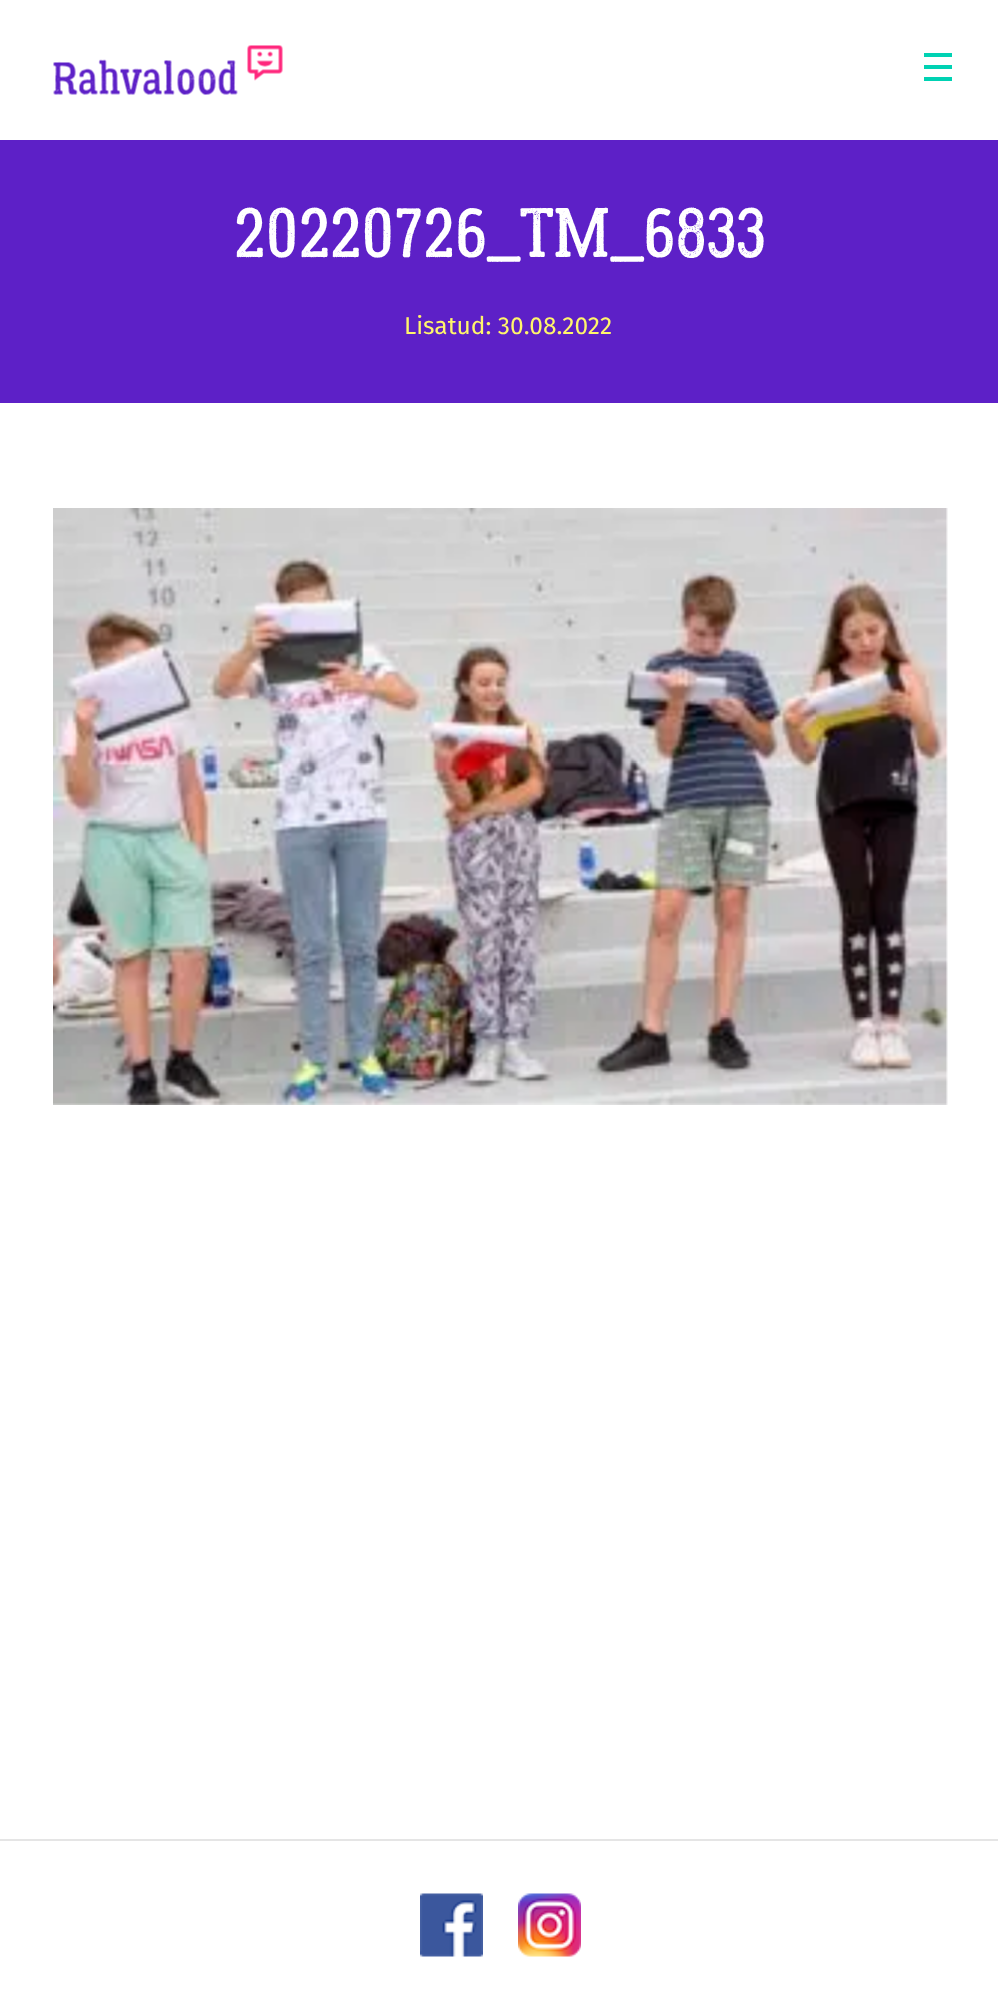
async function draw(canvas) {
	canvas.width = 998;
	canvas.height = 2009;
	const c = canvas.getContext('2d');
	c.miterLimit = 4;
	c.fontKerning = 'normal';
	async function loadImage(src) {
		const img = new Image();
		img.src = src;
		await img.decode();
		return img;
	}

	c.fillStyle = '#fff';
	c.fillRect(0, 0, 998, 2009);
	c.drawImage(await loadImage('img1.png'), 53, 45, 230, 50);
	for (const [x, y, w, h, color] of [
		[924, 65, 28, 4, '#00d2b3'],
		[924, 53, 28, 4, '#00d2b3'],
		[924, 77, 28, 4, '#00d2b3'],
		[0, 140, 998, 263, '#5d20c7'],
	]) {
		c.fillStyle = color;
		c.fillRect(x, y, w, h);
	}
	c.font = '70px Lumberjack';
	c.fillStyle = '#fff';
	c.fillText('20220726_TM_6833', 234, 257);
	c.font = '24.5px Fira Sans';
	c.fillStyle = '#fff56b';
	c.fillText('Lisatud: 30.08.2022', 404, 334);
	c.drawImage(await loadImage('img2.png'), 53, 508, 895, 597);
	c.fillStyle = '#e5e5e5';
	c.fillRect(0, 1839, 998, 2);
	c.drawImage(await loadImage('img3.png'), 420, 1893, 63, 64);
	c.drawImage(await loadImage('img4.png'), 518, 1893, 63, 64);
}

draw(document.querySelector('canvas'));
